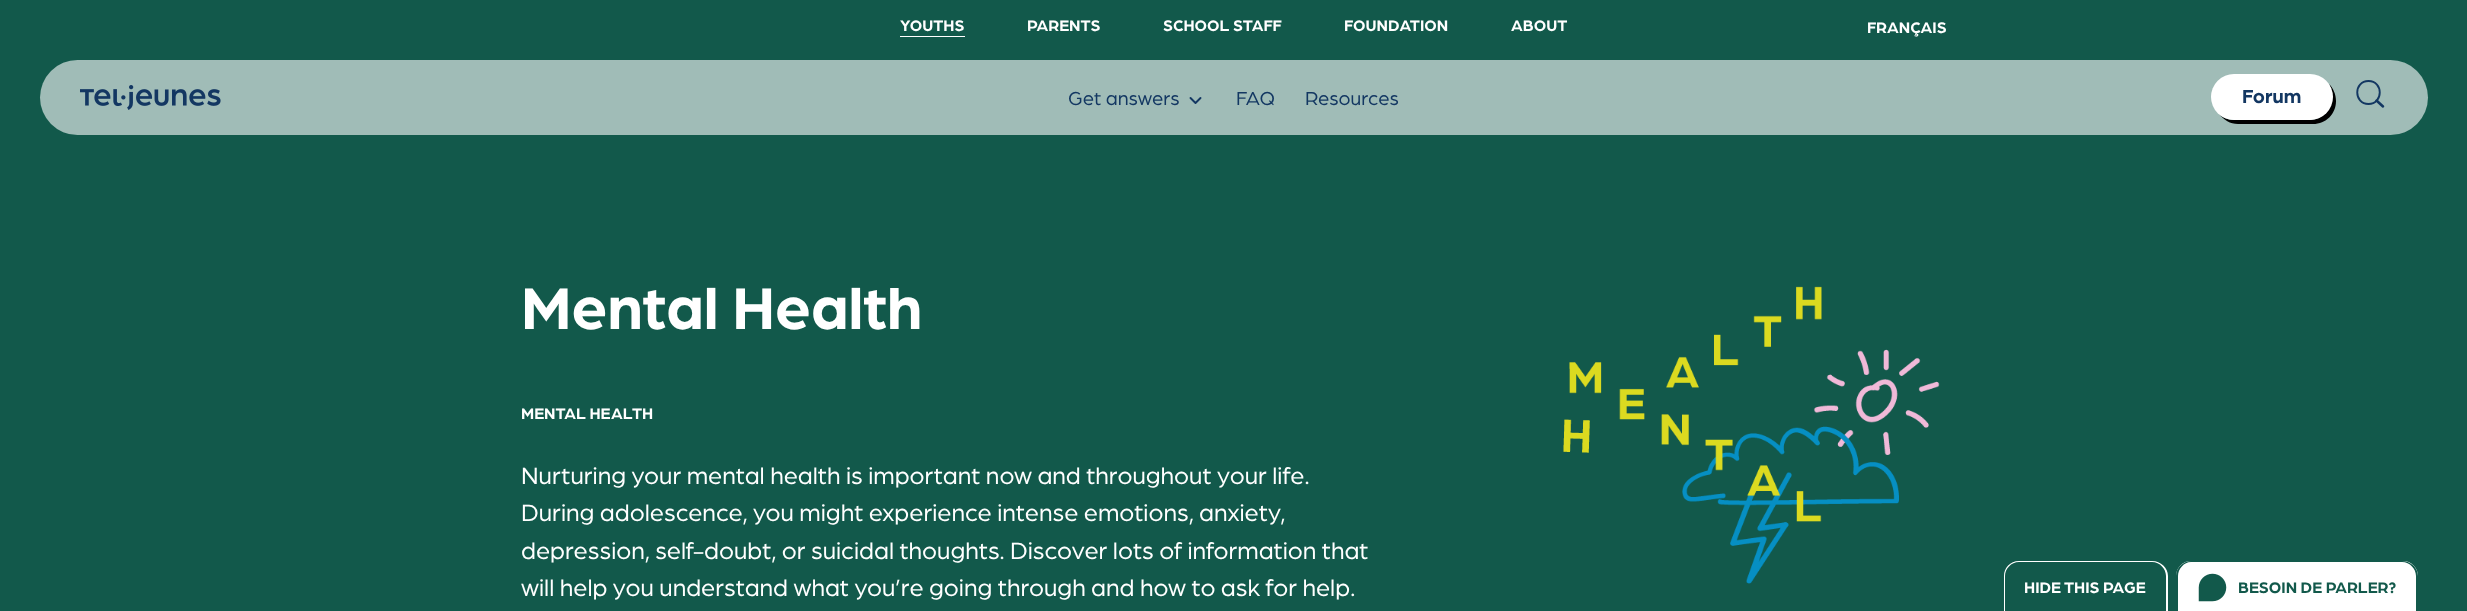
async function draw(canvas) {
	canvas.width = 2467;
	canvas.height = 611;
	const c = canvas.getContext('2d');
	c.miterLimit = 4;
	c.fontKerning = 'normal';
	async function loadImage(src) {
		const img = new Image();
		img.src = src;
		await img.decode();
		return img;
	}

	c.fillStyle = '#12594b';
	c.fillRect(0, 0, 2467, 611);
	c.fillStyle = '#fff';
	c.fillRect(900, 36, 65, 1);
	c.font = 'bold 16.25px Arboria';
	for (const [text, x, y] of [
		['YOUTHS', 900, 31],
		['PARENTS', 1027, 31],
		['SCHOOL STAFF', 1163, 31],
		['FOUNDATION', 1344, 31],
		['ABOUT', 1511, 31],
		['FRANÇAIS', 1867, 33],
	]) {
		c.fillText(text, x, y);
	}
	c.fillStyle = '#ffffff99';
	c.beginPath();
	c.roundRect(40, 60, 2388, 75, 37.5);
	c.fill();
	c.drawImage(await loadImage('img1.png'), 80, 85, 141, 25);
	c.font = '20px Arboria';
	c.fillStyle = '#133762';
	c.fillText('Get answers', 1068, 105);
	c.beginPath();
	c.moveTo(1190.5, 98);
	c.lineTo(1195.5, 103);
	c.lineTo(1200.5, 98);
	c.strokeStyle = '#133762';
	c.lineWidth = 1.9;
	c.lineCap = 'round';
	c.lineJoin = 'round';
	c.stroke();
	c.fillText('FAQ', 1236, 105);
	c.fillText('Resources', 1305, 105);
	c.fillStyle = '#000';
	c.beginPath();
	c.moveTo(2219, 114);
	c.bezierCurveTo(2224, 120, 2230, 124, 2238, 124);
	c.lineTo(2313, 124);
	c.bezierCurveTo(2326, 124, 2336, 114, 2336, 101);
	c.bezierCurveTo(2336, 94, 2333, 88, 2329, 84);
	c.bezierCurveTo(2331, 88, 2332, 92, 2332, 97);
	c.bezierCurveTo(2332, 110, 2322, 120, 2309, 120);
	c.lineTo(2234, 120);
	c.bezierCurveTo(2229, 120, 2223, 118, 2219, 114);
	c.closePath();
	c.fill();
	c.fillStyle = '#fff';
	c.beginPath();
	c.roundRect(2211, 74, 122, 46, 23);
	c.fill();
	c.font = 'bold 20px Arboria';
	c.fillStyle = '#133762';
	c.fillText('Forum', 2242, 103);
	c.beginPath();
	c.moveTo(2368.5, 104);
	c.bezierCurveTo(2383.5, 104, 2383.5, 81, 2368.5, 81);
	c.bezierCurveTo(2353.5, 81, 2353.5, 104, 2368.5, 104);
	c.closePath();
	c.stroke();
	c.beginPath();
	c.moveTo(2383, 106.5);
	c.lineTo(2376.5, 100.5);
	c.lineWidth = 2.5;
	c.stroke();
	c.font = 'bold 62.5px Arboria';
	c.fillStyle = '#fff';
	c.fillText('Mental Health', 521, 329);
	c.font = 'bold 16.25px Arboria';
	c.fillText('MENTAL HEALTH', 521, 419);
	c.font = '25px Arboria';
	for (const [text, x, y] of [
		['Nurturing your mental health is important now and throughout your life.', 521, 484],
		['During adolescence, you might experience intense emotions, anxiety,', 521, 521],
		['depression, self-doubt, or suicidal thoughts. Discover lots of information that', 521, 559],
		['will help you understand what you’re going through and how to ask for help.', 521, 596],
	]) {
		c.fillText(text, x, y);
	}
	c.drawImage(await loadImage('img2.png'), 1563, 286, 377, 298);
	c.beginPath();
	c.moveTo(2019, 561);
	c.lineTo(2152, 561);
	c.bezierCurveTo(2161, 561, 2168, 568, 2168, 576);
	c.lineTo(2168, 611);
	c.lineTo(2004, 611);
	c.lineTo(2004, 576);
	c.bezierCurveTo(2004, 568, 2010, 561, 2019, 561);
	c.closePath();
	c.moveTo(2019, 562);
	c.lineTo(2152, 562);
	c.bezierCurveTo(2160, 562, 2166, 569, 2166, 576);
	c.lineTo(2166, 611);
	c.lineTo(2005, 611);
	c.lineTo(2005, 576);
	c.bezierCurveTo(2005, 569, 2011, 562, 2019, 562);
	c.closePath();
	c.fill('evenodd');
	c.font = 'bold 16.25px Arboria';
	c.fillText('HIDE THIS PAGE', 2024, 593);
	c.beginPath();
	c.roundRect(2176, 561, 242, 50, [15, 15, 0, 0]);
	c.fill();
	c.fillStyle = '#12594b';
	c.beginPath();
	c.moveTo(2191, 561);
	c.lineTo(2402, 561);
	c.bezierCurveTo(2411, 561, 2418, 568, 2418, 576);
	c.lineTo(2418, 611);
	c.lineTo(2176, 611);
	c.lineTo(2176, 576);
	c.bezierCurveTo(2176, 568, 2183, 561, 2191, 561);
	c.closePath();
	c.moveTo(2191, 562);
	c.lineTo(2402, 562);
	c.bezierCurveTo(2410, 562, 2416, 569, 2416, 576);
	c.lineTo(2416, 611);
	c.lineTo(2178, 611);
	c.lineTo(2178, 576);
	c.bezierCurveTo(2178, 569, 2184, 562, 2191, 562);
	c.closePath();
	c.fill('evenodd');
	c.drawImage(await loadImage('img3.png'), 2198, 573, 29, 29);
	c.font = 'bold 16.25px "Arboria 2"';
	c.fillText('BESOIN DE PARLER?', 2238, 593);
}

draw(document.querySelector('canvas'));
